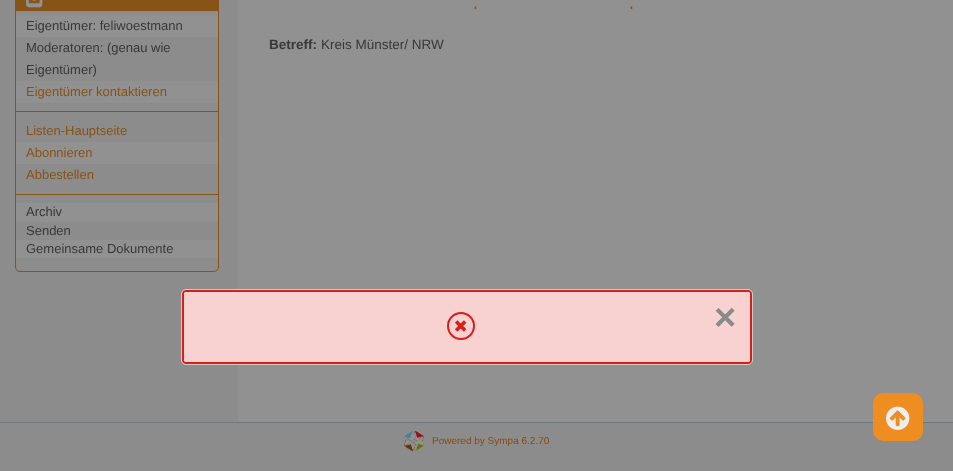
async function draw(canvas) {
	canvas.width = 953;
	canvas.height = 471;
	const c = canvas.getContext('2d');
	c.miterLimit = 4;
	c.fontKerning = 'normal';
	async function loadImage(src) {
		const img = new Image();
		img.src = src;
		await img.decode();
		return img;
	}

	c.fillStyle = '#8c8c8c';
	c.fillRect(0, 0, 953, 471);
	c.beginPath();
	c.roundRect(15.5, -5.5, 203, 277, 4.5);
	c.strokeStyle = '#875316';
	c.stroke();
	c.fillStyle = '#875316';
	c.fillRect(16, 0, 202, 11);
	c.drawImage(await loadImage('img1.png'), 26, 0, 17, 8);
	c.fillStyle = '#919191';
	c.fillRect(16, 15, 202, 22);
	c.font = '13px Liberation Sans';
	c.fillStyle = '#383838';
	for (const [text, x, y] of [
		['Eigentümer: feliwoestmann', 26, 30],
		['Moderatoren: (genau wie', 26, 52],
		['Eigentümer)', 26, 74],
	]) {
		c.fillText(text, x, y);
	}
	c.fillStyle = '#919191';
	c.fillRect(16, 81, 202, 22);
	c.fillStyle = '#875316';
	c.fillText('Eigentümer kontaktieren', 26, 96);
	c.fillRect(16, 111, 202, 1);
	c.fillStyle = '#844d0e';
	c.fillRect(217, 111, 1, 1);
	c.fillStyle = '#875316';
	c.fillText('Listen-Hauptseite', 26, 135);
	c.fillStyle = '#919191';
	c.fillRect(16, 142, 202, 22);
	c.fillStyle = '#875316';
	c.fillText('Abonnieren', 26, 157);
	c.fillText('Abbestellen', 26, 179);
	for (const [x, y, w, h, color] of [
		[16, 194, 202, 1, '#875316'],
		[217, 194, 1, 1, '#844d0e'],
		[16, 203, 202, 19, '#919191'],
	]) {
		c.fillStyle = color;
		c.fillRect(x, y, w, h);
	}
	c.fillStyle = '#383838';
	c.fillText('Archiv', 26, 216);
	c.fillText('Senden', 26, 235);
	c.fillStyle = '#919191';
	c.fillRect(16, 240, 202, 18);
	c.fillStyle = '#383838';
	c.fillText('Gemeinsame Dokumente', 26, 253);
	c.fillStyle = '#919191';
	c.fillRect(238, 0, 715, 422);
	c.font = '26px Raleway';
	c.fillStyle = '#875316';
	c.fillText('.', 473, 9);
	c.fillText('.', 629, 9);
	c.font = 'bold 13.5px Liberation Sans';
	c.fillStyle = '#383838';
	c.fillText('Betreff:', 269, 49);
	c.font = '13.5px Liberation Sans';
	c.fillText('Kreis Münster/ NRW', 321, 49);
	c.fillStyle = '#fff';
	c.beginPath();
	c.roundRect(181.5, 289.5, 571, 75, 4.5);
	c.fill();
	c.strokeStyle = '#cacaca';
	c.stroke();
	c.fillStyle = '#d91e1833';
	c.beginPath();
	c.roundRect(182, 290, 570, 74, 4);
	c.fill();
	c.fillStyle = '#d91e18';
	c.beginPath();
	c.moveTo(186, 290);
	c.bezierCurveTo(184, 290, 182, 292, 182, 294);
	c.lineTo(182, 360);
	c.bezierCurveTo(182, 362, 184, 364, 186, 364);
	c.lineTo(748, 364);
	c.bezierCurveTo(750, 364, 752, 362, 752, 360);
	c.lineTo(752, 294);
	c.bezierCurveTo(752, 292, 750, 290, 748, 290);
	c.closePath();
	c.moveTo(185, 292);
	c.lineTo(184, 293);
	c.lineTo(184, 361);
	c.lineTo(185, 362);
	c.lineTo(749, 362);
	c.lineTo(750, 361);
	c.lineTo(750, 293);
	c.lineTo(749, 292);
	c.closePath();
	c.fill('evenodd');
	c.beginPath();
	c.arc(461, 326, 13, 0, 2 * Math.PI);
	c.strokeStyle = '#d91e18';
	c.lineWidth = 2;
	c.stroke();
	c.drawImage(await loadImage('img2.png'), 455, 320, 12, 12);
	c.font = 'bold 38px Liberation Sans';
	c.fillStyle = '#8a8a8a';
	c.fillText('×', 714, 330);
	c.fillStyle = '#6e7880';
	c.fillRect(0, 422, 953, 1);
	c.drawImage(await loadImage('img3.png'), 404, 431, 20, 20);
	c.font = '10px Liberation Sans';
	c.fillStyle = '#844d0e';
	c.fillText('Powered by Sympa 6.2.70', 432, 444);
	c.fillStyle = '#ee8e20';
	c.beginPath();
	c.roundRect(873, 393, 50, 48, 10);
	c.fill();
	c.drawImage(await loadImage('img4.png'), 886, 406, 24, 24);
}

draw(document.querySelector('canvas'));
